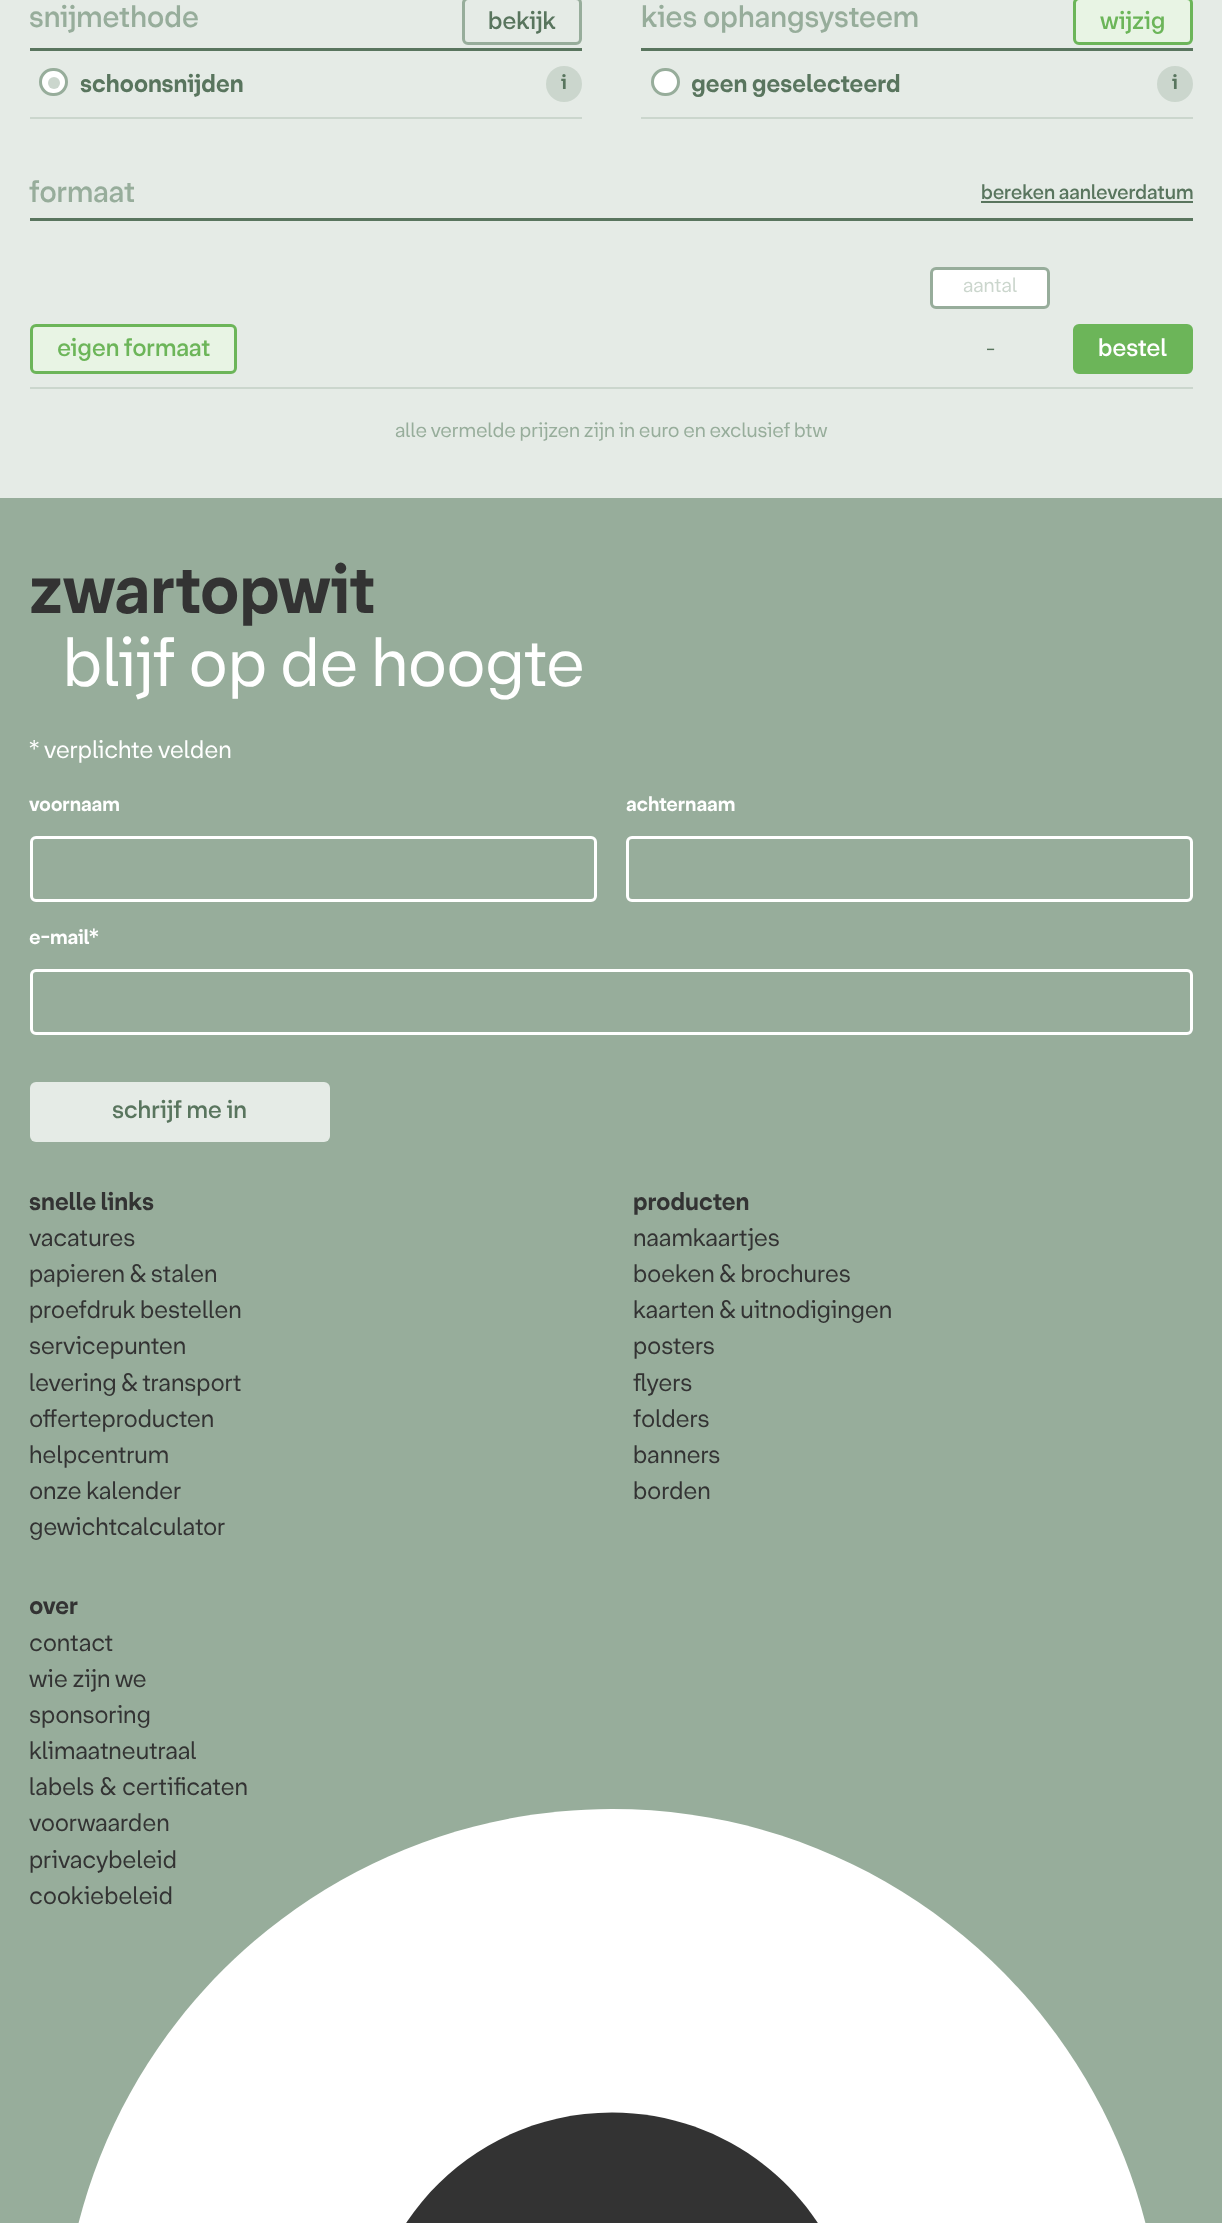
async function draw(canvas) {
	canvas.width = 1222;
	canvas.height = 2223;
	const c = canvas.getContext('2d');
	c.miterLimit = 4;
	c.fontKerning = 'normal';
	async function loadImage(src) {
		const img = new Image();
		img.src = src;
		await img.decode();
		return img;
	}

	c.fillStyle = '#97ad9b';
	c.fillRect(0, 0, 1222, 2223);
	c.fillStyle = '#e5ebe6';
	c.fillRect(0, 0, 1222, 498);
	c.fillStyle = '#59755e';
	c.fillRect(30, 48, 552, 3);
	c.font = '29.5px "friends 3"';
	c.fillStyle = '#97ad9b';
	c.fillText('snijmethode', 29, 27);
	c.beginPath();
	c.roundRect(463.5, -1.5, 117, 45, 4.5);
	c.strokeStyle = '#97ad9b';
	c.lineWidth = 3;
	c.stroke();
	c.font = '24.1px "friends 3"';
	c.fillStyle = '#59755e';
	c.fillText('bekijk', 488, 29);
	c.fillStyle = '#cbd6cd';
	c.fillRect(30, 117, 552, 2);
	c.fillStyle = '#fff';
	c.beginPath();
	c.roundRect(40.5, 69.5, 26, 25, 12.5);
	c.fill();
	c.stroke();
	c.fillStyle = '#cbd6cd';
	c.beginPath();
	c.arc(54, 83, 6, 0, 2 * Math.PI);
	c.fill();
	c.font = '24.1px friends';
	c.fillStyle = '#59755e';
	c.fillText('schoonsnijden', 80, 92);
	c.fillStyle = '#cbd6cd';
	c.beginPath();
	c.arc(564, 84, 18, 0, 2 * Math.PI);
	c.fill();
	c.font = '19.75px friends';
	c.fillStyle = '#59755e';
	c.fillText('i', 561, 89);
	c.fillRect(641, 48, 552, 3);
	c.font = '29.5px "friends 3"';
	c.fillStyle = '#97ad9b';
	c.fillText('kies ophangsysteem', 641, 27);
	c.fillStyle = '#e8f4e4';
	c.beginPath();
	c.roundRect(1074.5, -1.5, 117, 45, 4.5);
	c.fill();
	c.strokeStyle = '#6cb559';
	c.stroke();
	c.font = '24.1px "friends 3"';
	c.fillStyle = '#6cb559';
	c.fillText('wijzig', 1100, 29);
	c.fillStyle = '#cbd6cd';
	c.fillRect(641, 117, 552, 2);
	c.fillStyle = '#fff';
	c.beginPath();
	c.roundRect(652.5, 69.5, 26, 25, 12.5);
	c.fill();
	c.strokeStyle = '#97ad9b';
	c.stroke();
	c.font = '24.1px friends';
	c.fillStyle = '#59755e';
	c.fillText('geen geselecteerd', 691, 92);
	c.fillStyle = '#cbd6cd';
	c.beginPath();
	c.arc(1175, 84, 18, 0, 2 * Math.PI);
	c.fill();
	c.font = '19.75px friends';
	c.fillStyle = '#59755e';
	c.fillText('i', 1172, 89);
	c.fillRect(30, 218, 1163, 3);
	c.font = '29.5px "friends 3"';
	c.fillStyle = '#97ad9b';
	c.fillText('formaat', 29, 202);
	c.font = '19.75px "friends 3"';
	c.fillStyle = '#59755e';
	c.fillText('bereken aanleverdatum', 981, 199);
	c.fillRect(981, 201, 212, 2);
	c.fillStyle = '#fff';
	c.beginPath();
	c.roundRect(931.5, 268.5, 117, 39, 4.5);
	c.fill();
	c.stroke();
	c.font = '19.75px "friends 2"';
	c.fillStyle = '#cbd6cd';
	c.fillText('aantal', 963, 292);
	c.fillRect(30, 387, 1163, 2);
	c.fillStyle = '#e8f4e4';
	c.beginPath();
	c.roundRect(31.5, 325.5, 204, 47, 4.5);
	c.fill();
	c.strokeStyle = '#6cb559';
	c.stroke();
	c.font = '24.1px "friends 3"';
	c.fillStyle = '#6cb559';
	c.fillText('eigen formaat', 57, 356);
	c.font = '19.75px "friends 2"';
	c.fillStyle = '#59755e';
	c.fillText('-', 986, 356);
	c.fillStyle = '#6cb559';
	c.beginPath();
	c.roundRect(1074.5, 325.5, 117, 47, 4.5);
	c.fill();
	c.stroke();
	c.font = '24.1px "friends 3"';
	c.fillStyle = '#fff';
	c.fillText('bestel', 1098, 356);
	c.font = '19.75px "friends 2"';
	c.fillStyle = '#97ad9b';
	c.fillText('alle vermelde prijzen zijn in euro en exclusief btw', 395, 437);
	c.drawImage(await loadImage('img1.png'), 78, 1809, 1068, 414);
	c.font = '66.25px friends';
	c.fillStyle = '#333';
	c.fillText('zwartopwit', 29, 613);
	c.font = '66.25px "friends 2"';
	c.fillStyle = '#fff';
	c.fillText('blijf op de hoogte', 63, 686);
	c.font = '24.1px "friends 2"';
	c.fillText('* verplichte velden', 29, 758);
	c.font = '19.75px friends';
	c.fillText('voornaam', 29, 811);
	c.beginPath();
	c.roundRect(31.5, 837.5, 564, 63, 4.5);
	c.strokeStyle = '#fff';
	c.stroke();
	c.fillText('achternaam', 626, 811);
	c.beginPath();
	c.roundRect(627.5, 837.5, 564, 63, 4.5);
	c.stroke();
	c.fillText('e-mail', 29, 944);
	c.fillText('*', 89, 944);
	c.beginPath();
	c.roundRect(31.5, 970.5, 1160, 63, 4.5);
	c.stroke();
	c.fillStyle = '#e5ebe6';
	c.beginPath();
	c.roundRect(30, 1082, 300, 60, 6);
	c.fill();
	c.font = '24.1px "friends 3"';
	c.fillStyle = '#59755e';
	c.fillText('schrijf me in', 112, 1118);
	c.font = '24.1px friends';
	c.fillStyle = '#333';
	c.fillText('snelle links', 29, 1210);
	c.font = '24.1px "friends 2"';
	for (const [text, x, y] of [
		['vacatures', 29, 1246],
		['papieren & stalen', 29, 1282],
		['proefdruk bestellen', 29, 1318],
		['servicepunten', 29, 1354],
		['levering & transport', 29, 1391],
		['offerteproducten', 29, 1427],
		['helpcentrum', 29, 1463],
		['onze kalender', 29, 1499],
		['gewichtcalculator', 29, 1535],
	]) {
		c.fillText(text, x, y);
	}
	c.font = '24.1px friends';
	c.fillText('producten', 633, 1210);
	c.font = '24.1px "friends 2"';
	for (const [text, x, y] of [
		['naamkaartjes', 633, 1246],
		['boeken & brochures', 633, 1282],
		['kaarten & uitnodigingen', 633, 1318],
		['posters', 633, 1354],
		['flyers', 633, 1391],
		['folders', 633, 1427],
		['banners', 633, 1463],
		['borden', 633, 1499],
	]) {
		c.fillText(text, x, y);
	}
	c.font = '24.1px friends';
	c.fillText('over', 29, 1614);
	c.font = '24.1px "friends 2"';
	for (const [text, x, y] of [
		['contact', 29, 1651],
		['wie zijn we', 29, 1687],
		['sponsoring', 29, 1723],
		['klimaatneutraal', 29, 1759],
	]) {
		c.fillText(text, x, y);
	}
	c.wordSpacing = '1px';
	c.fillText('labels & certificaten', 29, 1795);
	c.wordSpacing = '0px';
	for (const [text, x, y] of [
		['voorwaarden', 29, 1831],
		['privacybeleid', 29, 1868],
		['cookiebeleid', 29, 1904],
	]) {
		c.fillText(text, x, y);
	}
}

draw(document.querySelector('canvas'));
